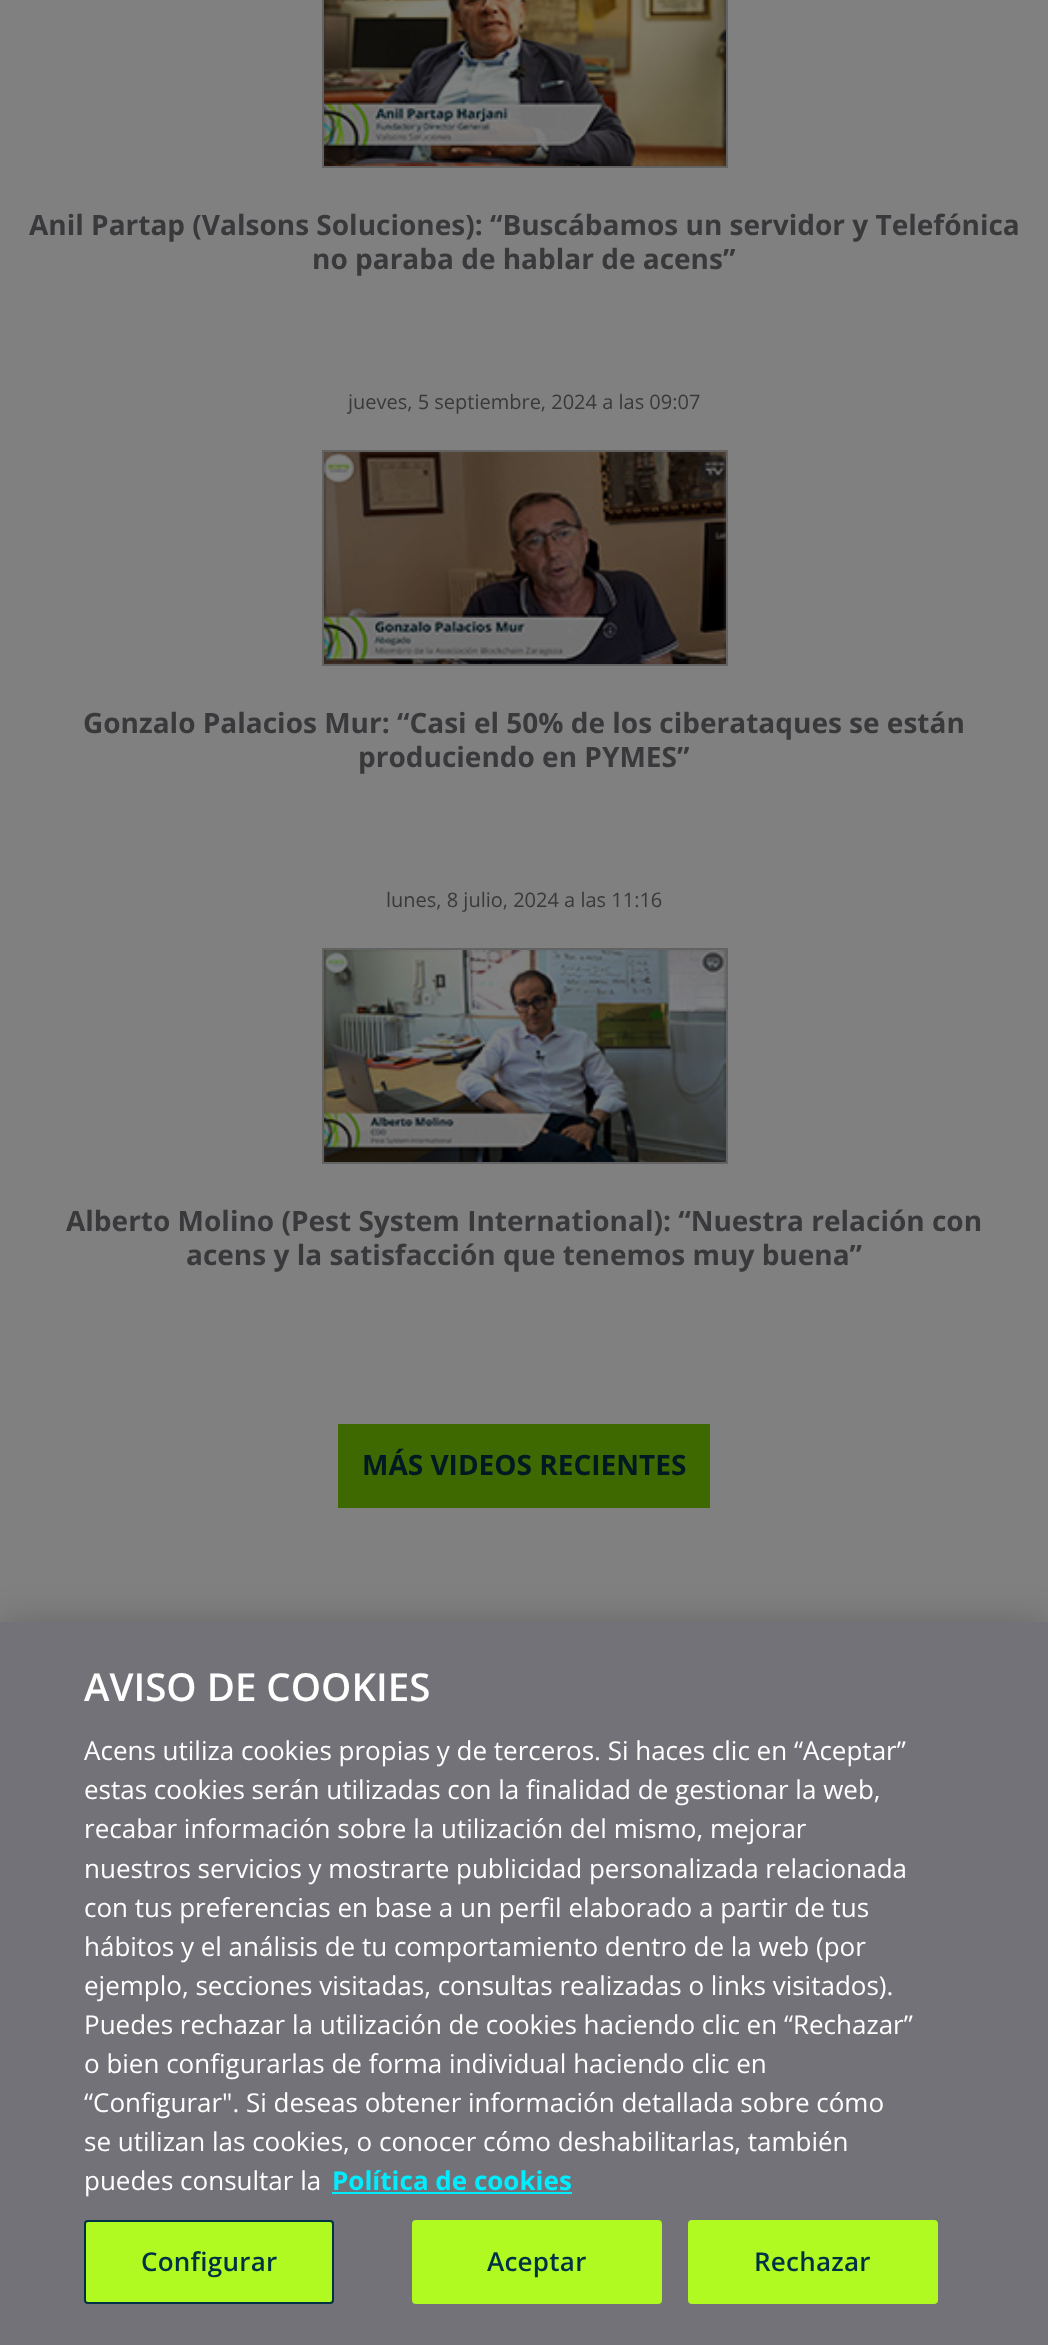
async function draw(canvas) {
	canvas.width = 1048;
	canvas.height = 2345;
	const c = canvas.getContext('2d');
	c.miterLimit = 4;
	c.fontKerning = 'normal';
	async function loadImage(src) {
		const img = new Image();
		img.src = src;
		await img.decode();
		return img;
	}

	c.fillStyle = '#808080';
	c.fillRect(0, 0, 1048, 2345);
	c.strokeStyle = '#626262';
	c.lineWidth = 2;
	c.strokeRect(323, -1, 404, 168);
	c.drawImage(await loadImage('img1.png'), 324, 0, 402, 166);
	c.font = 'bold 28px Open Sans';
	c.fillStyle = '#39393c';
	c.fillText('Anil Partap (Valsons Soluciones): “Buscábamos un servidor y Telefónica', 29, 235);
	c.fillText('no paraba de hablar de acens”', 312, 269);
	c.font = '20px Open Sans';
	c.fillText('jueves, 5 septiembre, 2024 a las 09:07', 348, 409);
	c.strokeRect(323, 451, 404, 214);
	c.drawImage(await loadImage('img2.png'), 324, 452, 402, 212);
	c.font = 'bold 28px Open Sans';
	c.fillText('Gonzalo Palacios Mur: “Casi el 50% de los ciberataques se están', 83, 733);
	c.fillText('produciendo en PYMES”', 358, 767);
	c.font = '20px Open Sans';
	c.fillText('lunes, 8 julio, 2024 a las 11:16', 386, 907);
	c.strokeRect(323, 949, 404, 214);
	c.drawImage(await loadImage('img3.png'), 324, 950, 402, 212);
	c.font = 'bold 28px Open Sans';
	c.fillText('Alberto Molino (Pest System International): “Nuestra relación con', 66, 1231);
	c.fillText('acens y la satisfacción que tenemos muy buena”', 186, 1265);
	c.fillStyle = '#3e6900';
	c.fillRect(338, 1424, 372, 84);
	c.fillStyle = '#001923';
	c.fillText('MÁS VIDEOS RECIENTES', 362, 1475);
	c.fillStyle = '#00000033';
	c.filter = 'blur(18px)';
	c.beginPath();
	c.rect(0, 1622, 1048, 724);
	c.fill();
	c.filter = 'none';
	c.fillStyle = '#727278';
	c.fillRect(0, 1622, 1048, 723);
	c.font = '600 38.5px Open Sans';
	c.fillStyle = '#fff';
	c.fillText('AVISO DE COOKIES', 84, 1701);
	c.font = '26px Open Sans';
	for (const [text, x, y] of [
		['Acens utiliza cookies propias y de terceros. Si haces clic en “Aceptar”', 84, 1760],
		['estas cookies serán utilizadas con la finalidad de gestionar la web,', 84, 1799],
		['recabar información sobre la utilización del mismo, mejorar', 84, 1838],
		['nuestros servicios y mostrarte publicidad personalizada relacionada', 84, 1878],
		['con tus preferencias en base a un perfil elaborado a partir de tus', 84, 1917],
		['hábitos y el análisis de tu comportamiento dentro de la web (por', 84, 1956],
		['ejemplo, secciones visitadas, consultas realizadas o links visitados).', 84, 1995],
		['Puedes rechazar la utilización de cookies haciendo clic en “Rechazar”', 84, 2034],
		['o bien configurarlas de forma individual haciendo clic en', 84, 2073],
		['“Configurar". Si deseas obtener información detallada sobre cómo', 84, 2112],
		['se utilizan las cookies, o conocer cómo deshabilitarlas, también', 84, 2151],
		['puedes consultar la', 84, 2190],
	]) {
		c.fillText(text, x, y);
	}
	c.font = 'bold 26px Open Sans';
	c.fillStyle = '#00edff';
	c.fillText('Política de cookies', 332, 2190);
	c.fillRect(332, 2192, 240, 2);
	c.fillStyle = '#b0f921';
	c.beginPath();
	c.roundRect(85, 2221, 248, 82, 3);
	c.fill();
	c.strokeStyle = '#003245';
	c.stroke();
	c.letterSpacing = '0.25px';
	c.font = '600 26px Open Sans';
	c.fillStyle = '#003245';
	c.fillText('Configurar', 141, 2271);
	c.fillStyle = '#b0f921';
	c.beginPath();
	c.roundRect(413, 2221, 248, 82, 3);
	c.fill();
	c.strokeStyle = '#b0f921';
	c.stroke();
	c.fillStyle = '#003245';
	c.fillText('Aceptar', 487, 2271);
	c.fillStyle = '#b0f921';
	c.beginPath();
	c.roundRect(689, 2221, 248, 82, 3);
	c.fill();
	c.stroke();
	c.fillStyle = '#003245';
	c.fillText('Rechazar', 754, 2271);
}

draw(document.querySelector('canvas'));
